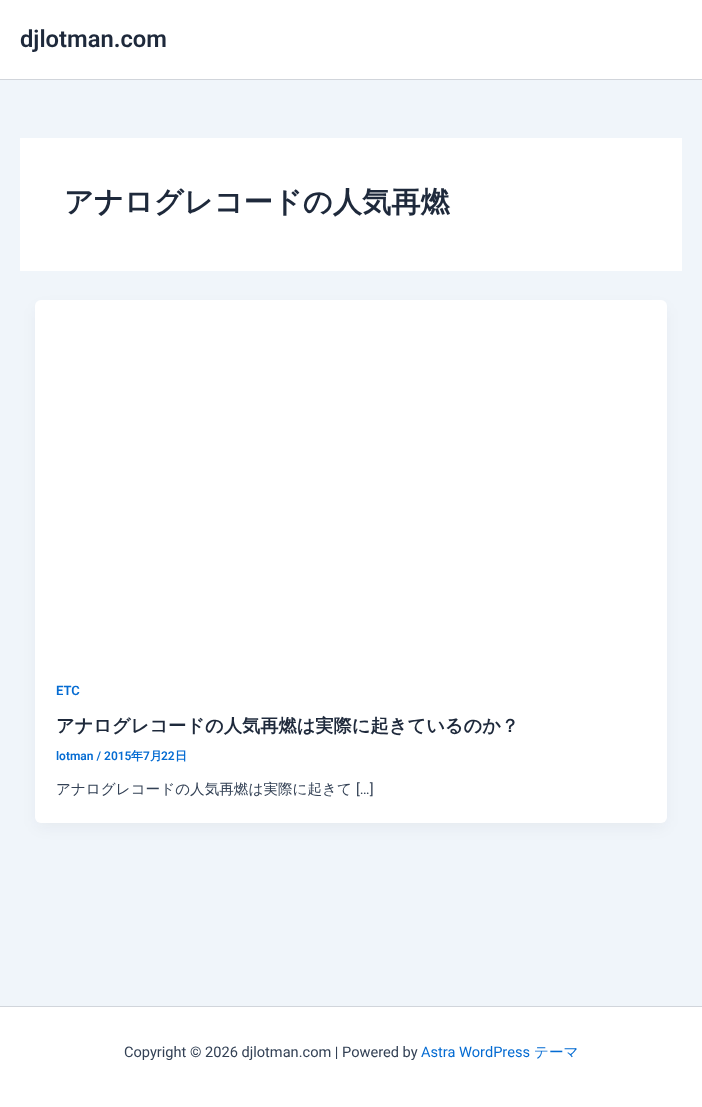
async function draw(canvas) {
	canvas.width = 702;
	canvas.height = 1107;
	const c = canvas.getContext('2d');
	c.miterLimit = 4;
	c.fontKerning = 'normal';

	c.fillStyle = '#f0f5fa';
	c.fillRect(0, 0, 702, 1107);
	c.fillStyle = '#fff';
	c.fillRect(0, 0, 702, 79);
	c.fillStyle = '#d1d5db';
	c.fillRect(0, 79, 702, 1);
	c.font = '600 23.75px Roboto';
	c.fillStyle = '#1e293b';
	c.fillText('djlotman.com', 20, 47);
	c.fillStyle = '#fff';
	c.fillRect(20, 138, 662, 133);
	c.font = 'bold 29.25px WenQuanYi Zen Hei';
	c.fillStyle = '#1e293b';
	c.fillText('アナログレコードの人気再燃', 64, 212);
	c.fillStyle = '#1018280d';
	c.filter = 'blur(7.5px)';
	c.beginPath();
	c.roundRect(37, 308, 628, 519, 4);
	c.fill();
	c.filter = 'none';
	c.fillStyle = '#fff';
	c.beginPath();
	c.roundRect(35, 300, 632, 523, 6);
	c.fill();
	c.font = '600 13px Roboto';
	c.fillStyle = '#046bd2';
	c.fillText('ETC', 56, 695);
	c.font = 'bold 18.25px WenQuanYi Zen Hei';
	c.fillStyle = '#1e293b';
	c.fillText('アナログレコードの人気再燃は実際に起きているのか？', 56, 732);
	c.font = '600 12px Roboto';
	c.fillStyle = '#046bd2';
	c.fillText('lotman / 2015', 56, 760);
	c.font = 'bold 12px WenQuanYi Zen Hei';
	c.fillText('年', 131, 760);
	c.font = '600 12px Roboto';
	c.fillText('7', 143, 760);
	c.font = 'bold 12px WenQuanYi Zen Hei';
	c.fillText('月', 150, 760);
	c.font = '600 12px Roboto';
	c.fillText('22', 161, 760);
	c.font = 'bold 12px WenQuanYi Zen Hei';
	c.fillText('日', 175, 760);
	c.font = '500 14.6px WenQuanYi Zen Hei';
	c.fillStyle = '#334155';
	c.fillText('アナログレコードの人気再燃は実際に起きて', 56, 794);
	c.font = '14.6px Roboto';
	c.fillText('[…]', 356, 794);
	c.fillStyle = '#fff';
	c.fillRect(0, 1007, 702, 100);
	c.fillStyle = '#d1d5db';
	c.fillRect(0, 1006, 702, 1);
	c.fillStyle = '#334155';
	c.fillText('Copyright © 2026 djlotman.com | Powered by', 124, 1057);
	c.fillStyle = '#046bd2';
	c.fillText('Astra WordPress', 421, 1057);
	c.font = '500 14.6px WenQuanYi Zen Hei';
	c.fillText('テーマ', 534, 1057);
}

draw(document.querySelector('canvas'));
